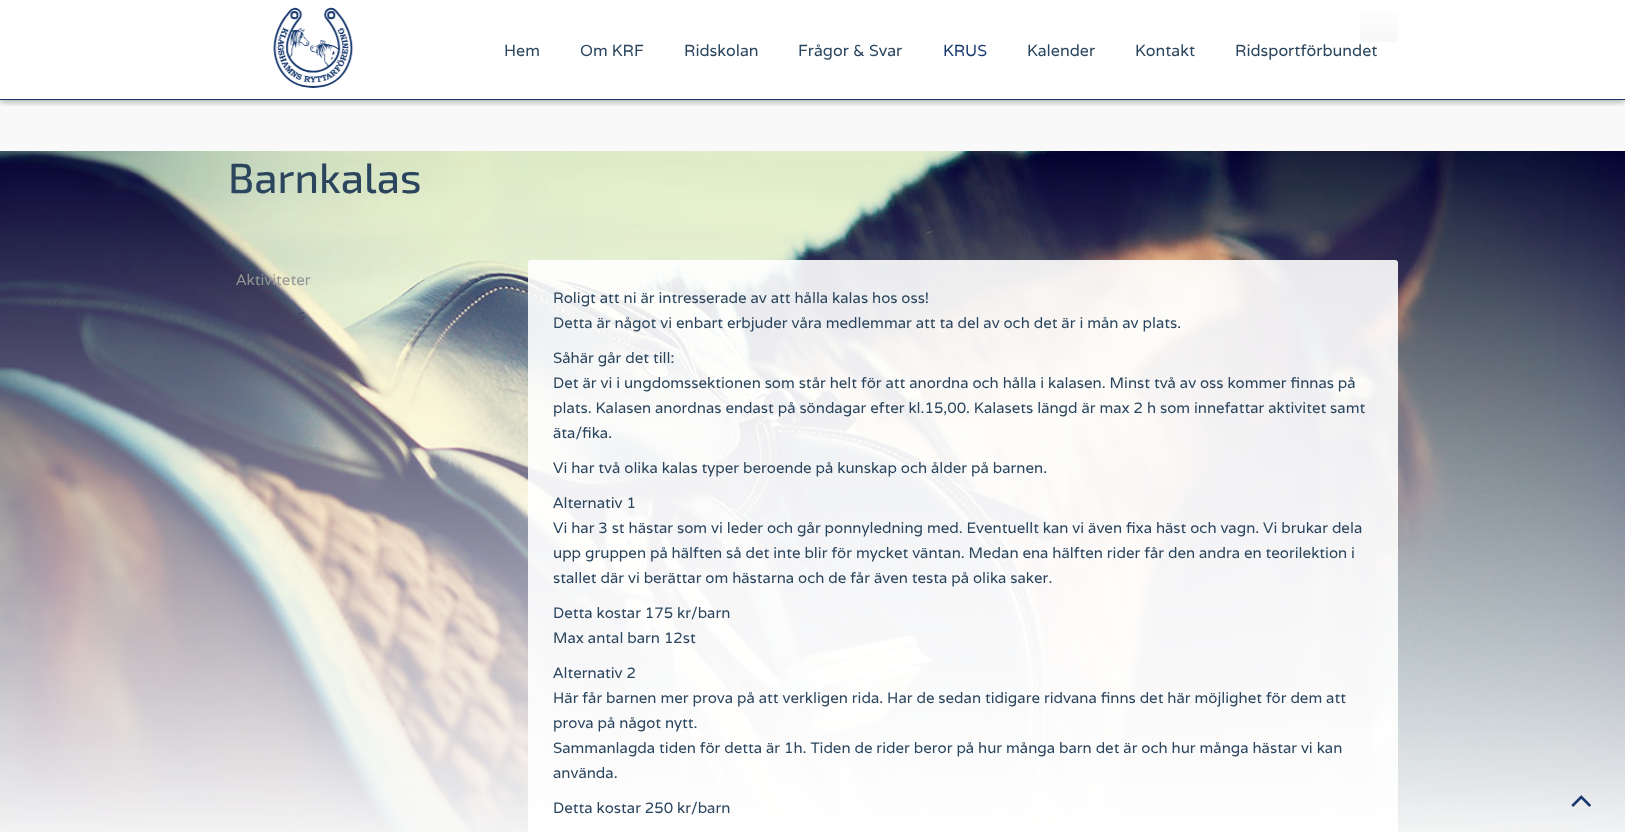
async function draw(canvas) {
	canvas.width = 1625;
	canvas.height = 832;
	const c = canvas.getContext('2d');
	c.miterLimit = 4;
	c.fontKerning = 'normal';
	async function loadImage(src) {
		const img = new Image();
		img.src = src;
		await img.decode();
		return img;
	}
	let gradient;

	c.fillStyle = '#f9f9f9';
	c.fillRect(0, 0, 1625, 832);
	c.fillStyle = '#fff';
	c.beginPath();
	c.roundRect(1219.5, 12.5, 136, 29, 1.5);
	c.fill();
	c.strokeStyle = '#d9d9d9';
	c.stroke();
	c.fillStyle = '#223148';
	c.beginPath();
	c.roundRect(1360, 12, 38, 30, 3);
	c.fill();
	c.fillStyle = '#38465a';
	c.beginPath();
	c.moveTo(1363, 14);
	c.lineTo(1392.5, 14);
	c.bezierCurveTo(1397.5, 14, 1397, 15, 1397, 20);
	c.lineTo(1397, 15);
	c.bezierCurveTo(1397, 14, 1396, 13, 1395, 13);
	c.lineTo(1363, 13);
	c.bezierCurveTo(1362, 13, 1361, 14, 1361, 15);
	c.closePath();
	c.fill();
	c.beginPath();
	c.roundRect(1360.5, 12.5, 37, 29, 2.5);
	c.strokeStyle = '#0000001a';
	c.stroke();
	c.save();
	c.beginPath();
	c.rect(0, 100, 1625, 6);
	c.clip();
	c.fillStyle = '#0000004d';
	c.filter = 'blur(3px)';
	c.beginPath();
	c.rect(0, 2, 1625, 100);
	c.fill();
	c.filter = 'none';
	c.restore();
	gradient = c.createLinearGradient(813, 0, 813, 99);
	gradient.addColorStop(0, '#fff');
	gradient.addColorStop(1, '#ffffffeb');
	c.fillStyle = gradient;
	c.fillRect(0, 0, 1625, 99);
	c.fillStyle = '#16386f';
	c.fillRect(0, 99, 1625, 1);
	c.drawImage(await loadImage('img1.png'), 273, 7, 81, 81);
	c.font = '16px Varela';
	c.fillStyle = '#2a455d';
	for (const [text, x, y] of [
		['Hem', 504, 56],
		['Om KRF', 580, 56],
		['Ridskolan', 684, 56],
		['Frågor & Svar', 798, 56],
	]) {
		c.fillText(text, x, y);
	}
	c.fillStyle = '#16386f';
	c.fillText('KRUS', 943, 56);
	c.fillStyle = '#2a455d';
	for (const [text, x, y] of [
		['Kalender', 1027, 56],
		['Kontakt', 1135, 56],
		['Ridsportförbundet', 1235, 56],
	]) {
		c.fillText(text, x, y);
	}
	c.drawImage(await loadImage('img2.png'), 0, 151, 1625, 681);
	c.font = '500 42px "Exo 2"';
	c.fillText('Barnkalas', 228, 193);
	c.font = '15px Varela';
	c.fillStyle = '#939594';
	c.fillText('Aktiviteter', 236, 285);
	c.fillStyle = '#444362';
	c.fillText('s', 298, 320);
	c.fillStyle = '#ffffffe6';
	c.beginPath();
	c.roundRect(528, 260, 870, 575, 3);
	c.fill();
	c.fillStyle = '#2a455d';
	for (const [text, x, y] of [
		['Roligt att ni är intresserade av att hålla kalas hos oss!', 553, 303],
		['Detta är något vi enbart erbjuder våra medlemmar att ta del av och det är i mån av plats.', 553, 328],
		['Såhär går det till:', 553, 363],
		['Det är vi i ungdomssektionen som står helt för att anordna och hålla i kalasen. Minst två av oss kommer finnas på', 553, 388],
		['plats. Kalasen anordnas endast på söndagar efter kl.15,00. Kalasets längd är max 2 h som innefattar aktivitet samt', 553, 413],
		['äta/fika.', 553, 438],
		['Vi har två olika kalas typer beroende på kunskap och ålder på barnen.', 553, 473],
		['Alternativ 1', 553, 508],
		['Vi har 3 st hästar som vi leder och går ponnyledning med. Eventuellt kan vi även fixa häst och vagn. Vi brukar dela', 553, 533],
		['upp gruppen på hälften så det inte blir för mycket väntan. Medan ena hälften rider får den andra en teorilektion i', 553, 558],
		['stallet där vi berättar om hästarna och de får även testa på olika saker.', 553, 583],
		['Detta kostar 175 kr/barn', 553, 618],
		['Max antal barn 12st', 553, 643],
		['Alternativ 2', 553, 678],
		['Här får barnen mer prova på att verkligen rida. Har de sedan tidigare ridvana finns det här möjlighet för dem att', 553, 703],
		['prova på något nytt.', 553, 728],
		['Sammanlagda tiden för detta är 1h. Tiden de rider beror på hur många barn det är och hur många hästar vi kan', 553, 753],
		['använda.', 553, 778],
		['Detta kostar 250 kr/barn', 553, 813],
	]) {
		c.fillText(text, x, y);
	}
	c.drawImage(await loadImage('img3.png'), 1571, 795, 20, 12);
}

draw(document.querySelector('canvas'));
